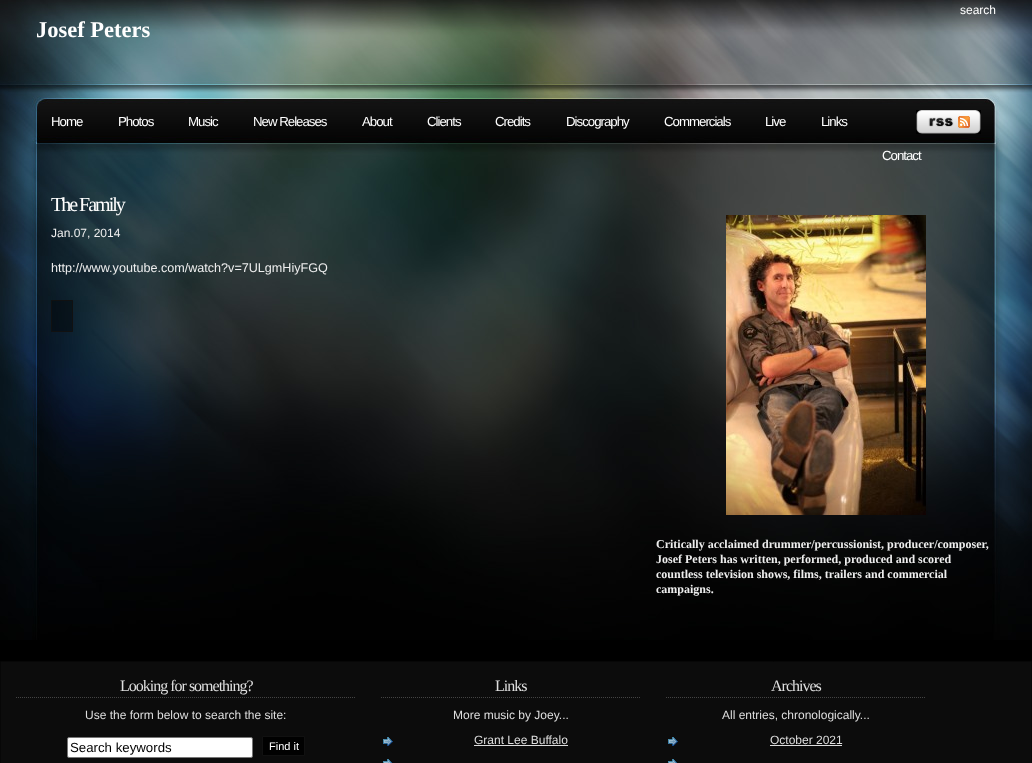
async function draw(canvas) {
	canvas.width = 1032;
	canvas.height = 763;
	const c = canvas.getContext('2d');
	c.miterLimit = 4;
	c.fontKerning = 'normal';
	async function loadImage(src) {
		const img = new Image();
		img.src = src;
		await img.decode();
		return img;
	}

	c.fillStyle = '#000';
	c.fillRect(0, 0, 1032, 763);
	c.drawImage(await loadImage('img1.png'), 0, 0, 1032, 640);
	c.font = '12px Liberation Sans';
	c.fillStyle = '#fff';
	c.fillText('search', 960, 14);
	c.font = 'bold 22.5px Liberation Serif';
	c.fillText('Josef Peters', 36, 37);
	c.letterSpacing = '-1px';
	c.font = '13.25px Liberation Sans';
	for (const [text, x, y] of [
		['Home', 51, 126],
		['Photos', 118, 126],
		['Music', 188, 126],
		['New Releases', 253, 126],
		['About', 362, 126],
		['Clients', 427, 126],
		['Credits', 495, 126],
		['Discography', 566, 126],
		['Commercials', 664, 126],
		['Live', 765, 126],
		['Links', 821, 126],
		['Contact', 882, 160],
	]) {
		c.fillText(text, x, y);
	}
	c.drawImage(await loadImage('img2.png'), 916, 110, 65, 24);
	c.letterSpacing = '-2px';
	c.font = '20px Liberation Serif';
	c.fillText('The Family', 51, 211);
	c.letterSpacing = '0px';
	c.font = '12px Liberation Sans';
	c.fillStyle = '#eee';
	c.fillText('Jan.07, 2014', 51, 237);
	c.font = '12.6px Liberation Sans';
	c.fillText('http://www.youtube.com/watch?v=7ULgmHiyFGQ', 51, 272);
	c.fillStyle = '#00000061';
	c.beginPath();
	c.rect(51.5, 300.5, 21, 31);
	c.fill();
	c.strokeStyle = '#111';
	c.stroke();
	c.drawImage(await loadImage('img3.png'), 726, 215, 200, 300);
	c.font = 'bold 12px Liberation Serif';
	c.fillStyle = '#eee';
	for (const [text, x, y] of [
		['Critically acclaimed drummer/percussionist, producer/composer,', 656, 548],
		['Josef Peters has written, performed, produced and scored', 656, 563],
		['countless television shows, films, trailers and commercial', 656, 578],
		['campaigns.', 656, 593],
	]) {
		c.fillText(text, x, y);
	}
	c.fillStyle = '#0c0c0c';
	c.beginPath();
	c.rect(0.5, 661.5, 1031, 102);
	c.fill();
	c.strokeStyle = '#070707';
	c.stroke();
	c.beginPath();
	c.moveTo(16, 697.5);
	c.lineTo(356, 697.5);
	c.strokeStyle = '#444';
	c.setLineDash([1, 1]);
	c.stroke();
	c.letterSpacing = '-1px';
	c.font = '16px Liberation Serif';
	c.fillStyle = '#dfdfdf';
	c.fillText('Looking for something?', 120, 691);
	c.letterSpacing = '0px';
	c.font = '12px Liberation Sans';
	c.fillText('Use the form below to search the site:', 85, 719);
	c.fillStyle = '#fff';
	c.beginPath();
	c.roundRect(67.5, 737.5, 185, 20, 1.5);
	c.fill();
	c.strokeStyle = '#767676';
	c.setLineDash([]);
	c.stroke();
	c.font = '13.25px Liberation Sans';
	c.fillStyle = '#000';
	c.fillText('Search keywords', 70, 752);
	c.fillStyle = '#010101';
	c.beginPath();
	c.rect(262.5, 736.5, 42, 19);
	c.fill();
	c.strokeStyle = '#111';
	c.stroke();
	c.font = '11px Liberation Sans';
	c.fillStyle = '#fff';
	c.fillText('Find it', 269, 750);
	c.beginPath();
	c.moveTo(381, 697.5);
	c.lineTo(641, 697.5);
	c.strokeStyle = '#444';
	c.setLineDash([1, 1]);
	c.stroke();
	c.letterSpacing = '-1px';
	c.font = '16px Liberation Serif';
	c.fillStyle = '#dfdfdf';
	c.fillText('Links', 495, 691);
	c.letterSpacing = '0px';
	c.font = '12px Liberation Sans';
	c.fillText('More music by Joey...', 453, 719);
	c.drawImage(await loadImage('img4.png'), 383, 737, 10, 9);
	c.fillText('Grant Lee Buffalo', 474, 744);
	c.fillStyle = '#ddd';
	c.fillRect(474, 745, 94, 1);
	c.drawImage(await loadImage('img5.png'), 383, 759, 10, 4);
	c.beginPath();
	c.moveTo(666, 697.5);
	c.lineTo(926, 697.5);
	c.stroke();
	c.letterSpacing = '-1px';
	c.font = '16px Liberation Serif';
	c.fillStyle = '#dfdfdf';
	c.fillText('Archives', 771, 691);
	c.letterSpacing = '0px';
	c.font = '12px Liberation Sans';
	c.fillText('All entries, chronologically...', 722, 719);
	c.drawImage(await loadImage('img4.png'), 668, 737, 10, 9);
	c.fillText('October 2021', 770, 744);
	c.fillStyle = '#ddd';
	c.fillRect(770, 745, 72, 1);
	c.drawImage(await loadImage('img5.png'), 668, 759, 10, 4);
}

draw(document.querySelector('canvas'));
